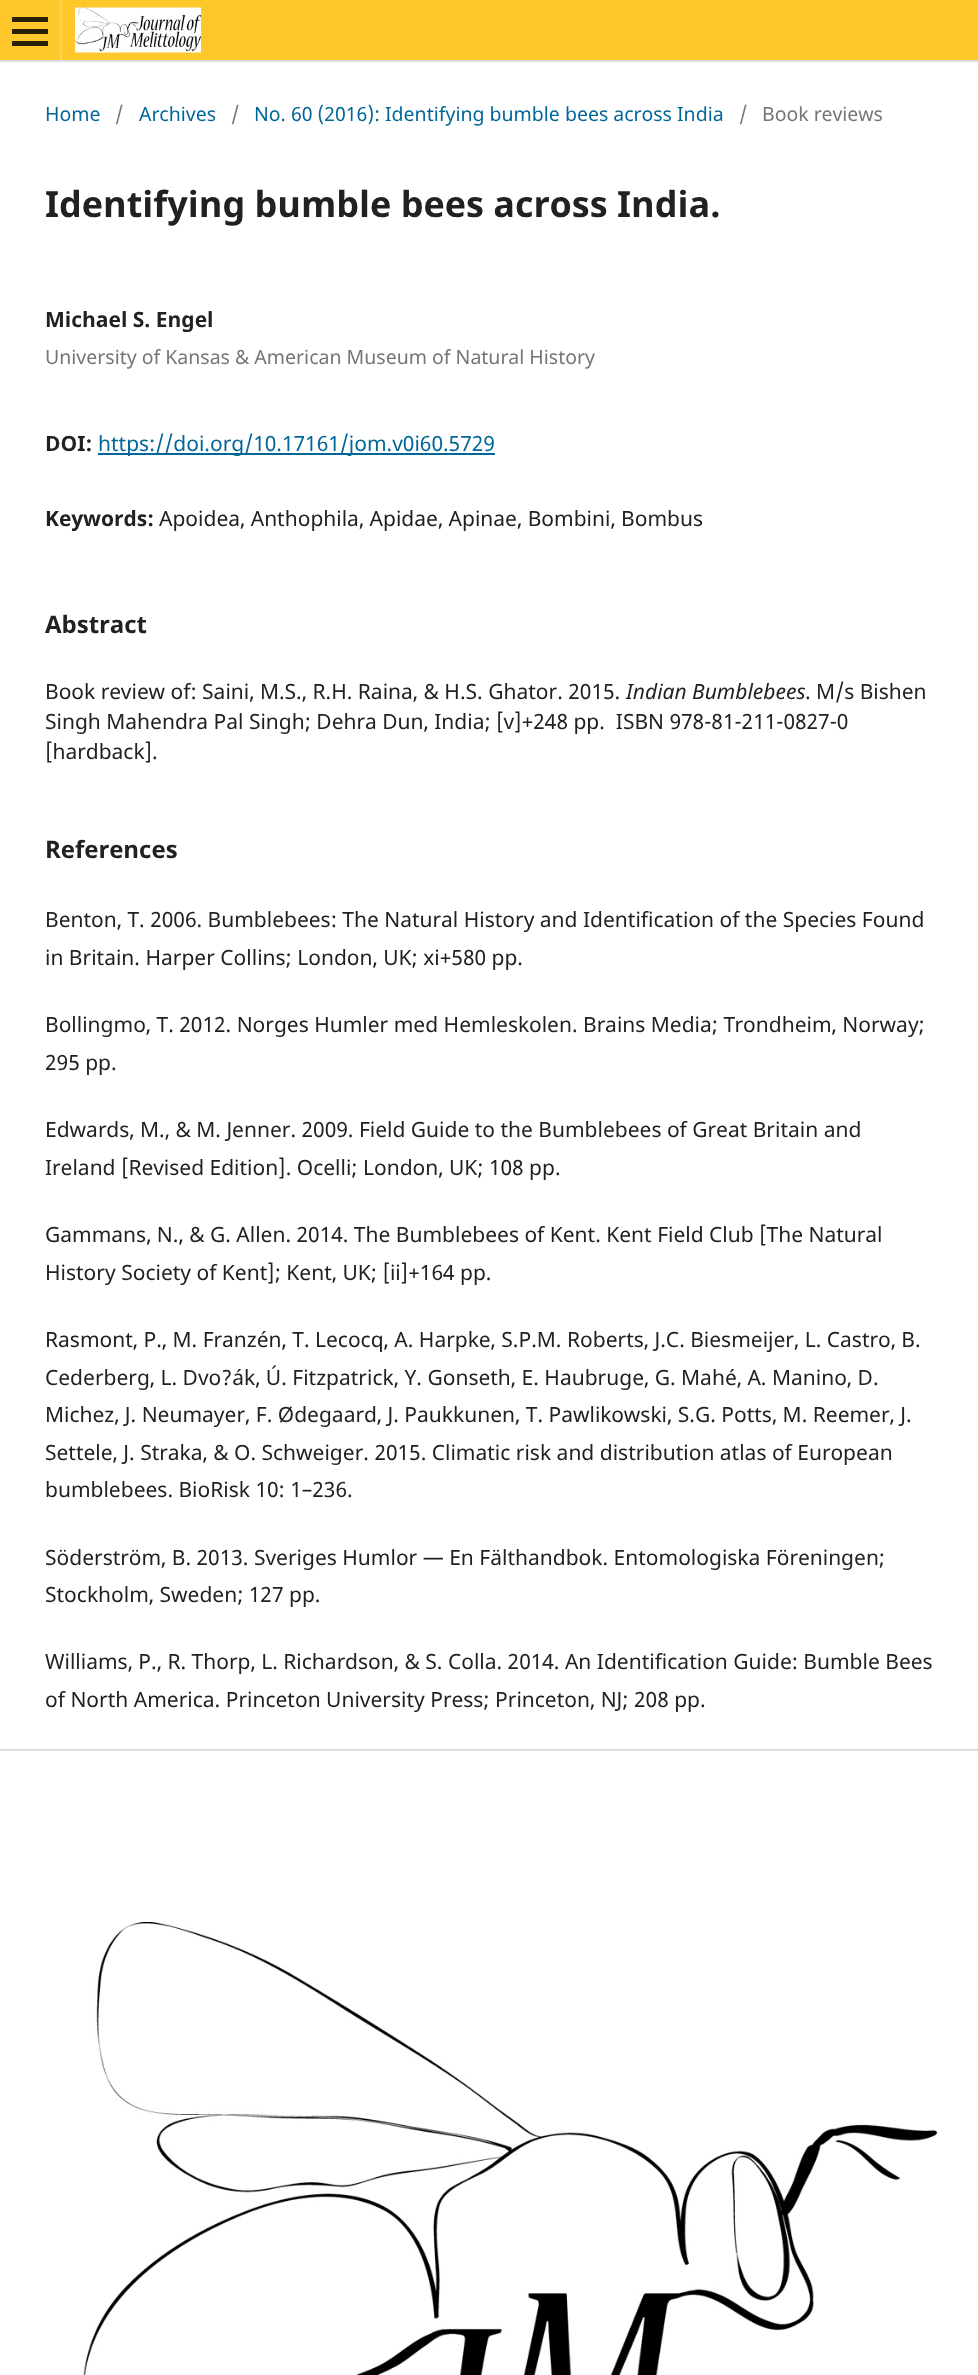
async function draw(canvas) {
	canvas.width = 978;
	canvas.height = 2375;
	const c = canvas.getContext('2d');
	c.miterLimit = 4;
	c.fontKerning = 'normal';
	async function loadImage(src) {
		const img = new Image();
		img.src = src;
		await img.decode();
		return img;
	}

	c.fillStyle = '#fff';
	c.fillRect(0, 0, 978, 2375);
	for (const [x, y, w, h, color] of [
		[0, 0, 978, 60, '#ffc82a'],
		[0, 60, 978, 2, '#ddd'],
		[60, 0, 2, 60, '#ffd355'],
		[12, 41, 36, 5, '#292007'],
		[12, 17, 36, 5, '#292007'],
		[12, 29, 36, 5, '#292007'],
	]) {
		c.fillStyle = color;
		c.fillRect(x, y, w, h);
	}
	c.drawImage(await loadImage('img1.png'), 75, 7, 126, 46);
	c.font = '19.5px Noto Sans';
	c.fillStyle = '#006798';
	c.fillText('Home', 45, 121);
	c.fillStyle = '#757575';
	c.fillText('/', 115, 121);
	c.fillStyle = '#006798';
	c.fillText('Archives', 139, 121);
	c.fillStyle = '#757575';
	c.fillText('/', 231, 121);
	c.fillStyle = '#006798';
	c.fillText('No. 60 (2016): Identifying bumble bees across India', 254, 121);
	c.fillStyle = '#757575';
	c.fillText('/', 739, 121);
	c.fillText('Book reviews', 762, 121);
	c.font = 'bold 36px Noto Sans';
	c.fillStyle = '#212121';
	c.fillText('Identifying bumble bees across India.', 45, 217);
	c.font = 'bold 21px Noto Sans';
	c.fillText('Michael S. Engel', 45, 327);
	c.font = '19.5px Noto Sans';
	c.fillStyle = '#757575';
	c.fillText('University of Kansas & American Museum of Natural History', 45, 364);
	c.font = 'bold 21px Noto Sans';
	c.fillStyle = '#212121';
	c.fillText('DOI:', 45, 451);
	c.fillStyle = '#006798';
	c.fillRect(98, 453, 397, 2);
	c.font = '21px Noto Sans';
	c.fillText('https://doi.org/10.17161/jom.v0i60.5729', 98, 451);
	c.font = 'bold 21px Noto Sans';
	c.fillStyle = '#212121';
	c.fillText('Keywords:', 45, 526);
	c.font = '21px Noto Sans';
	c.fillText('Apoidea, Anthophila, Apidae, Apinae, Bombini, Bombus', 159, 526);
	c.font = 'bold 24px Noto Sans';
	c.fillText('Abstract', 45, 633);
	c.font = '21px Noto Sans';
	c.fillText('Book review of: Saini, M.S., R.H. Raina, & H.S. Ghator. 2015.', 45, 699);
	c.font = 'italic 21px Noto Sans';
	c.fillText('Indian Bumblebees', 626, 699);
	c.font = '21px Noto Sans';
	for (const [text, x, y] of [
		['. M/s Bishen', 805, 699],
		['Singh Mahendra Pal Singh; Dehra Dun, India; [v]+248 pp.  ISBN 978-81-211-0827-0', 45, 729],
		['[hardback].', 45, 759],
	]) {
		c.fillText(text, x, y);
	}
	c.font = 'bold 24px Noto Sans';
	c.fillText('References', 45, 858);
	c.font = '21px Noto Sans';
	for (const [text, x, y] of [
		['Benton, T. 2006. Bumblebees: The Natural History and Identification of the Species Found', 45, 927],
		['in Britain. Harper Collins; London, UK; xi+580 pp.', 45, 965],
		['Bollingmo, T. 2012. Norges Humler med Hemleskolen. Brains Media; Trondheim, Norway;', 45, 1032],
		['295 pp.', 45, 1070],
		['Edwards, M., & M. Jenner. 2009. Field Guide to the Bumblebees of Great Britain and', 45, 1137],
		['Ireland [Revised Edition]. Ocelli; London, UK; 108 pp.', 45, 1175],
		['Gammans, N., & G. Allen. 2014. The Bumblebees of Kent. Kent Field Club [The Natural', 45, 1242],
		['History Society of Kent]; Kent, UK; [ii]+164 pp.', 45, 1280],
		['Rasmont, P., M. Franzén, T. Lecocq, A. Harpke, S.P.M. Roberts, J.C. Biesmeijer, L. Castro, B.', 45, 1347],
		['Cederberg, L. Dvo?ák, Ú. Fitzpatrick, Y. Gonseth, E. Haubruge, G. Mahé, A. Manino, D.', 45, 1385],
		['Michez, J. Neumayer, F. Ødegaard, J. Paukkunen, T. Pawlikowski, S.G. Potts, M. Reemer, J.', 45, 1422],
		['Settele, J. Straka, & O. Schweiger. 2015. Climatic risk and distribution atlas of European', 45, 1460],
		['bumblebees. BioRisk 10: 1–236.', 45, 1497],
		['Söderström, B. 2013. Sveriges Humlor — En Fälthandbok. Entomologiska Föreningen;', 45, 1565],
		['Stockholm, Sweden; 127 pp.', 45, 1602],
		['Williams, P., R. Thorp, L. Richardson, & S. Colla. 2014. An Identification Guide: Bumble Bees', 45, 1669],
		['of North America. Princeton University Press; Princeton, NJ; 208 pp.', 45, 1707],
	]) {
		c.fillText(text, x, y);
	}
	c.fillStyle = '#ddd';
	c.fillRect(0, 1749, 978, 2);
	c.drawImage(await loadImage('img2.png'), 83, 1922, 855, 453);
}

draw(document.querySelector('canvas'));
